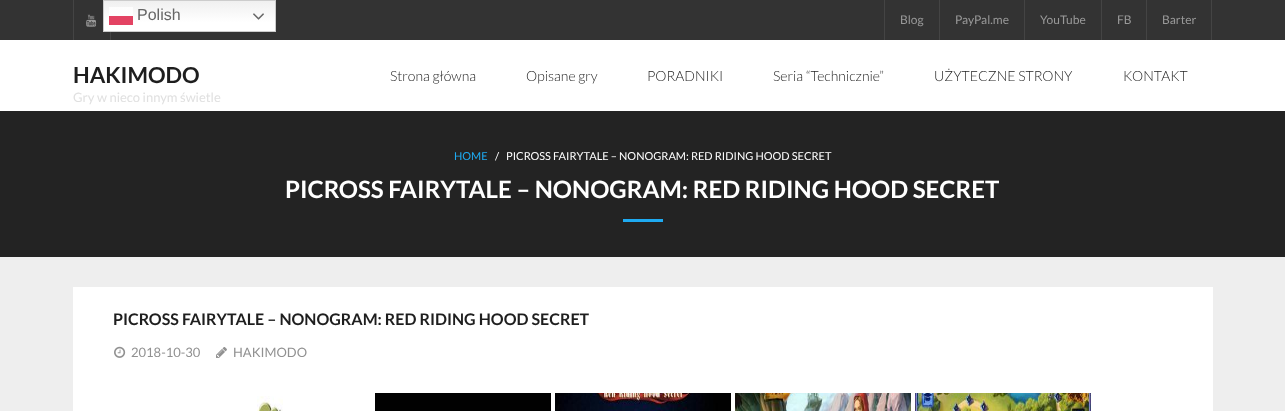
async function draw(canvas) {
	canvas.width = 1285;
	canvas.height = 411;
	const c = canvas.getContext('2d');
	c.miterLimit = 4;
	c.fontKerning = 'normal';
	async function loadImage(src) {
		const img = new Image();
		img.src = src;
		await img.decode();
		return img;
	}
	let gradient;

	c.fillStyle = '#eee';
	c.fillRect(0, 0, 1285, 411);
	c.fillStyle = '#333';
	c.fillRect(0, 0, 1285, 40);
	gradient = c.createLinearGradient(190, 0, 190, 32);
	gradient.addColorStop(0, '#efefef');
	gradient.addColorStop(0.7, '#fff');
	c.fillStyle = gradient;
	c.fillRect(104, 1, 171, 30);
	gradient = c.createLinearGradient(190, 0, 190, 32);
	gradient.addColorStop(0, '#fcfcfc');
	gradient.addColorStop(0.7, '#fff');
	c.fillStyle = gradient;
	c.fillRect(109, 7, 24, 9);
	c.strokeStyle = '#ccc';
	c.strokeRect(103.5, 0.5, 172, 31);
	c.fillStyle = '#e34363';
	c.fillRect(109, 16, 24, 9);
	c.font = '16px Liberation Sans';
	c.fillStyle = '#666';
	c.fillText('Polish', 137, 20);
	c.drawImage(await loadImage('img1.png'), 253, 13, 11, 7);
	c.fillStyle = '#444';
	c.fillRect(110, 32, 1, 8);
	c.fillRect(73, 0, 1, 40);
	c.drawImage(await loadImage('img2.png'), 86, 14, 11, 13);
	c.fillRect(884, 0, 1, 40);
	c.font = '12px Lato';
	c.fillStyle = '#999';
	c.fillText('Blog', 900, 24);
	c.fillStyle = '#444';
	c.fillRect(939, 0, 1, 40);
	c.fillStyle = '#999';
	c.fillText('PayPal.me', 955, 24);
	c.fillStyle = '#444';
	c.fillRect(1024, 0, 1, 40);
	c.fillStyle = '#999';
	c.fillText('YouTube', 1040, 24);
	c.fillStyle = '#444';
	c.fillRect(1101, 0, 1, 40);
	c.fillStyle = '#999';
	c.fillText('FB', 1117, 24);
	c.fillStyle = '#444';
	c.fillRect(1211, 0, 1, 40);
	c.fillRect(1146, 0, 1, 40);
	c.fillStyle = '#999';
	c.fillText('Barter', 1162, 24);
	c.fillStyle = '#fff';
	c.fillRect(0, 40, 1285, 71);
	c.font = 'bold 22px Lato';
	c.fillStyle = '#1e1e1e';
	c.fillText('HAKIMODO', 73, 83);
	c.font = '13px Lato';
	c.fillStyle = '#e0e0e0';
	c.fillText('Gry w nieco innym świetle', 73, 102);
	c.font = '300 14px Lato';
	c.fillStyle = '#1e1e1e';
	for (const [text, x, y] of [
		['Strona główna', 390, 81],
		['Opisane gry', 526, 81],
		['PORADNIKI', 647, 81],
		['Seria “Technicznie”', 773, 81],
		['UŻYTECZNE STRONY', 934, 81],
		['KONTAKT', 1123, 81],
	]) {
		c.fillText(text, x, y);
	}
	c.fillStyle = '#232323';
	c.fillRect(0, 111, 1285, 146);
	c.font = '11px Lato';
	c.fillStyle = '#1eaaf1';
	c.fillText('HOME', 454, 160);
	c.fillStyle = '#fff';
	c.fillText('/', 495, 160);
	c.fillText('PICROSS FAIRYTALE – NONOGRAM: RED RIDING HOOD SECRET', 506, 160);
	c.font = 'bold 24px Lato';
	c.fillText('PICROSS FAIRYTALE – NONOGRAM: RED RIDING HOOD SECRET', 285, 198);
	c.fillStyle = '#1eaaf1';
	c.fillRect(623, 219, 40, 3);
	c.fillStyle = '#fff';
	c.fillRect(73, 287, 1140, 124);
	c.font = 'bold 16px Lato';
	c.fillStyle = '#1e1e1e';
	c.fillText('PICROSS FAIRYTALE – NONOGRAM: RED RIDING HOOD SECRET', 113, 325);
	c.drawImage(await loadImage('img3.png'), 114, 346, 12, 12);
	c.font = '13px Lato';
	c.fillStyle = '#919191';
	c.fillText('2018-10-30', 131, 357);
	c.drawImage(await loadImage('img4.png'), 216, 347, 11, 11);
	c.fillText('HAKIMODO', 233, 357);
	c.drawImage(await loadImage('img5.png'), 257, 396, 26, 15);
	c.fillStyle = '#010101';
	c.fillRect(375, 393, 176, 18);
	c.drawImage(await loadImage('img6.png'), 555, 393, 176, 18);
	c.drawImage(await loadImage('img7.png'), 735, 393, 176, 18);
	c.drawImage(await loadImage('img8.png'), 915, 393, 176, 18);
}

draw(document.querySelector('canvas'));
